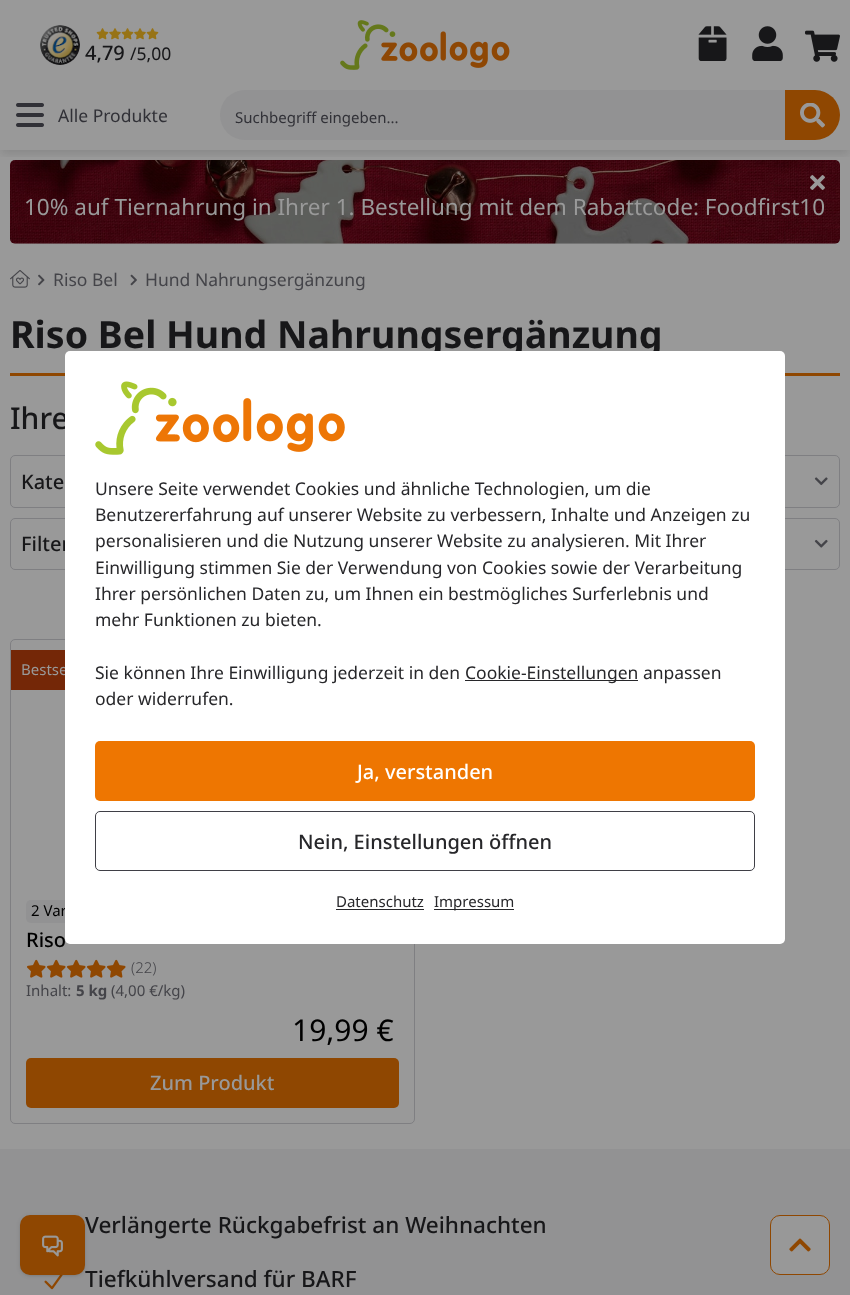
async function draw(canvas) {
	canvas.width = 850;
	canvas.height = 1295;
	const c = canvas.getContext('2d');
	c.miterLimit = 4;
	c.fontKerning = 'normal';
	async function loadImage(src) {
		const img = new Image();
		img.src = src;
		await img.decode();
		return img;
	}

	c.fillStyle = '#999';
	c.fillRect(0, 0, 850, 1295);
	c.drawImage(await loadImage('img10.png'), 10, 160, 830, 84);
	c.save();
	c.beginPath();
	c.rect(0, 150, 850, 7);
	c.clip();
	c.fillStyle = '#0000001a';
	c.filter = 'blur(4px)';
	c.beginPath();
	c.rect(1, 6, 848, 148);
	c.fill();
	c.filter = 'none';
	c.restore();
	c.drawImage(await loadImage('img1.png'), 40, 25, 40, 40);
	c.drawImage(await loadImage('img2.png'), 96, 28, 13, 12);
	c.drawImage(await loadImage('img3.png'), 109, 28, 12, 12);
	c.drawImage(await loadImage('img2.png'), 121, 28, 13, 12);
	c.drawImage(await loadImage('img3.png'), 134, 28, 12, 12);
	c.drawImage(await loadImage('img2.png'), 146, 28, 13, 12);
	c.font = '500 20px Noto Sans';
	c.fillStyle = '#171719';
	c.fillText('4,79', 85, 60);
	c.font = '17.5px Noto Sans';
	c.fillText('/5,00', 130, 60);
	c.drawImage(await loadImage('img4.png'), 340, 20, 170, 50);
	c.drawImage(await loadImage('img5.png'), 698, 26, 29, 35);
	c.drawImage(await loadImage('img6.png'), 752, 26, 31, 35);
	c.drawImage(await loadImage('img7.png'), 805, 30, 35, 32);
	c.drawImage(await loadImage('img8.png'), 16, 103, 28, 24);
	c.fillStyle = '#313137';
	c.fillText('Alle Produkte', 58, 122);
	c.fillStyle = '#929293';
	c.beginPath();
	c.roundRect(220, 90, 565, 50, [25, 0, 0, 25]);
	c.fill();
	c.font = '15px Noto Sans';
	c.fillStyle = '#313137';
	c.fillText('Suchbegriff eingeben...', 235, 123);
	c.fillStyle = '#8f4701';
	c.beginPath();
	c.roundRect(785, 90, 55, 50, [0, 25, 25, 0]);
	c.fill();
	c.drawImage(await loadImage('img9.png'), 800, 103, 25, 25);
	c.drawImage(await loadImage('img11.png'), 810, 175, 15, 15);
	c.font = '22.5px Noto Sans';
	c.fillStyle = '#999';
	c.fillText('10% auf Tiernahrung in Ihrer 1. Bestellung mit dem Rabattcode: Foodfirst10', 24, 215);
	c.drawImage(await loadImage('img12.png'), 10, 270, 20, 18);
	c.drawImage(await loadImage('img13.png'), 38, 274, 7, 12);
	c.font = '17.5px Noto Sans';
	c.fillStyle = '#444449';
	c.fillText('Riso Bel', 53, 286);
	c.drawImage(await loadImage('img14.png'), 130, 274, 7, 12);
	c.fillText('Hund Nahrungsergänzung', 145, 286);
	c.font = 'bold 37.5px Noto Sans';
	c.fillStyle = '#171719';
	c.fillText('Riso Bel Hund Nahrungsergänzung', 10, 348);
	c.fillStyle = '#8f4701';
	c.fillRect(10, 373, 830, 3);
	c.font = '500 30px Noto Sans';
	c.fillStyle = '#171719';
	c.fillText('Ihre', 10, 429);
	c.beginPath();
	c.roundRect(10.5, 455.5, 829, 52, 4.5);
	c.strokeStyle = '#7f7f82';
	c.stroke();
	c.font = '500 20px Noto Sans';
	c.fillText('Kate', 21, 489);
	c.drawImage(await loadImage('img15.png'), 814, 477, 14, 9);
	c.beginPath();
	c.roundRect(10.5, 518.5, 829, 51, 4.5);
	c.stroke();
	c.fillText('Filter', 21, 551);
	c.drawImage(await loadImage('img16.png'), 814, 539, 14, 9);
	c.beginPath();
	c.roundRect(10.5, 639.5, 404, 484, 4.5);
	c.stroke();
	c.fillStyle = '#742707';
	c.fillRect(11, 650, 54, 40);
	c.font = '15px Noto Sans';
	c.fillStyle = '#999';
	c.fillText('Bestse', 21, 675);
	c.fillStyle = '#929293';
	c.beginPath();
	c.roundRect(26, 900, 90, 23, 5);
	c.fill();
	c.fillStyle = '#000';
	c.fillText('2 Var', 31, 916);
	c.font = '500 20px Noto Sans';
	c.fillText('Riso', 26, 947);
	c.drawImage(await loadImage('img17.png'), 27, 959, 19, 19);
	c.drawImage(await loadImage('img17.png'), 47, 959, 19, 19);
	c.drawImage(await loadImage('img17.png'), 67, 959, 19, 19);
	c.drawImage(await loadImage('img17.png'), 87, 959, 19, 19);
	c.drawImage(await loadImage('img17.png'), 107, 959, 19, 19);
	c.font = '300 15px Noto Sans';
	c.fillStyle = '#444449';
	c.fillText('(22)', 131, 973);
	c.font = '15px Noto Sans';
	c.fillText('Inhalt:', 26, 996);
	c.font = 'bold 15px Noto Sans';
	c.fillText('5 kg', 76, 996);
	c.font = '15px Noto Sans';
	c.fillText('(4,00 €/kg)', 111, 996);
	c.font = '30px Noto Sans';
	c.fillStyle = '#000';
	c.fillText('19,99 €', 292, 1041);
	c.fillStyle = '#8f4701';
	c.beginPath();
	c.roundRect(26, 1058, 373, 50, 5);
	c.fill();
	c.font = '500 20px Noto Sans';
	c.fillStyle = '#999';
	c.fillText('Zum Produkt', 150, 1090);
	c.fillStyle = '#fff';
	c.beginPath();
	c.roundRect(65, 351, 720, 593, 5);
	c.fill();
	c.drawImage(await loadImage('img18.png'), 95, 381, 250, 74);
	c.font = '17.5px Noto Sans';
	c.fillStyle = '#27272a';
	for (const [text, x, y] of [
		['Unsere Seite verwendet Cookies und ähnliche Technologien, um die', 95, 495],
		['Benutzererfahrung auf unserer Website zu verbessern, Inhalte und Anzeigen zu', 95, 521],
		['personalisieren und die Nutzung unserer Website zu analysieren. Mit Ihrer', 95, 547],
		['Einwilligung stimmen Sie der Verwendung von Cookies sowie der Verarbeitung', 95, 574],
		['Ihrer persönlichen Daten zu, um Ihnen ein bestmögliches Surferlebnis und', 95, 600],
		['mehr Funktionen zu bieten.', 95, 626],
		['Sie können Ihre Einwilligung jederzeit in den', 95, 679],
	]) {
		c.fillText(text, x, y);
	}
	c.fillRect(465, 680, 173, 1);
	c.fillText('Cookie-Einstellungen anpassen', 465, 679);
	c.fillText('oder widerrufen.', 95, 705);
	c.fillStyle = '#ee7601';
	c.beginPath();
	c.roundRect(95, 741, 660, 60, 5);
	c.fill();
	c.font = '500 20px Noto Sans';
	c.fillStyle = '#fff';
	c.fillText('Ja, verstanden', 357, 779);
	c.beginPath();
	c.roundRect(95.5, 811.5, 659, 59, 4.5);
	c.strokeStyle = '#3f3f46';
	c.stroke();
	c.fillStyle = '#27272a';
	c.fillText('Nein, Einstellungen öffnen', 298, 849);
	c.font = '15px Noto Sans';
	c.fillText('Datenschutz', 336, 907);
	c.fillRect(336, 909, 88, 1);
	c.fillRect(434, 909, 80, 1);
	c.fillText('Impressum', 434, 907);
	c.fillStyle = '#929293';
	c.fillRect(0, 1149, 850, 146);
	c.drawImage(await loadImage('img20.png'), 44, 1275, 19, 15);
	c.fillStyle = '#0000001a';
	c.filter = 'blur(1px)';
	c.beginPath();
	c.roundRect(21, 1218, 63, 57, 9);
	c.fill();
	c.filter = 'none';
	c.filter = 'blur(2px)';
	c.beginPath();
	c.roundRect(20, 1216, 65, 60, 10);
	c.fill();
	c.filter = 'none';
	c.fillStyle = '#8f4701';
	c.beginPath();
	c.roundRect(20, 1215, 65, 60, 10);
	c.fill();
	c.drawImage(await loadImage('img19.png'), 42, 1235, 21, 22);
	c.font = '500 22.5px Noto Sans';
	c.fillStyle = '#171719';
	c.fillText('Verlängerte Rückgabefrist an Weihnachten', 85, 1233);
	c.fillText('Tiefkühlversand für BARF', 85, 1287);
	c.fillStyle = '#989898';
	c.beginPath();
	c.roundRect(770.5, 1215.5, 59, 59, 9.5);
	c.fill();
	c.strokeStyle = '#8f4701';
	c.stroke();
	c.drawImage(await loadImage('img21.png'), 789, 1238, 22, 14);
}

draw(document.querySelector('canvas'));
